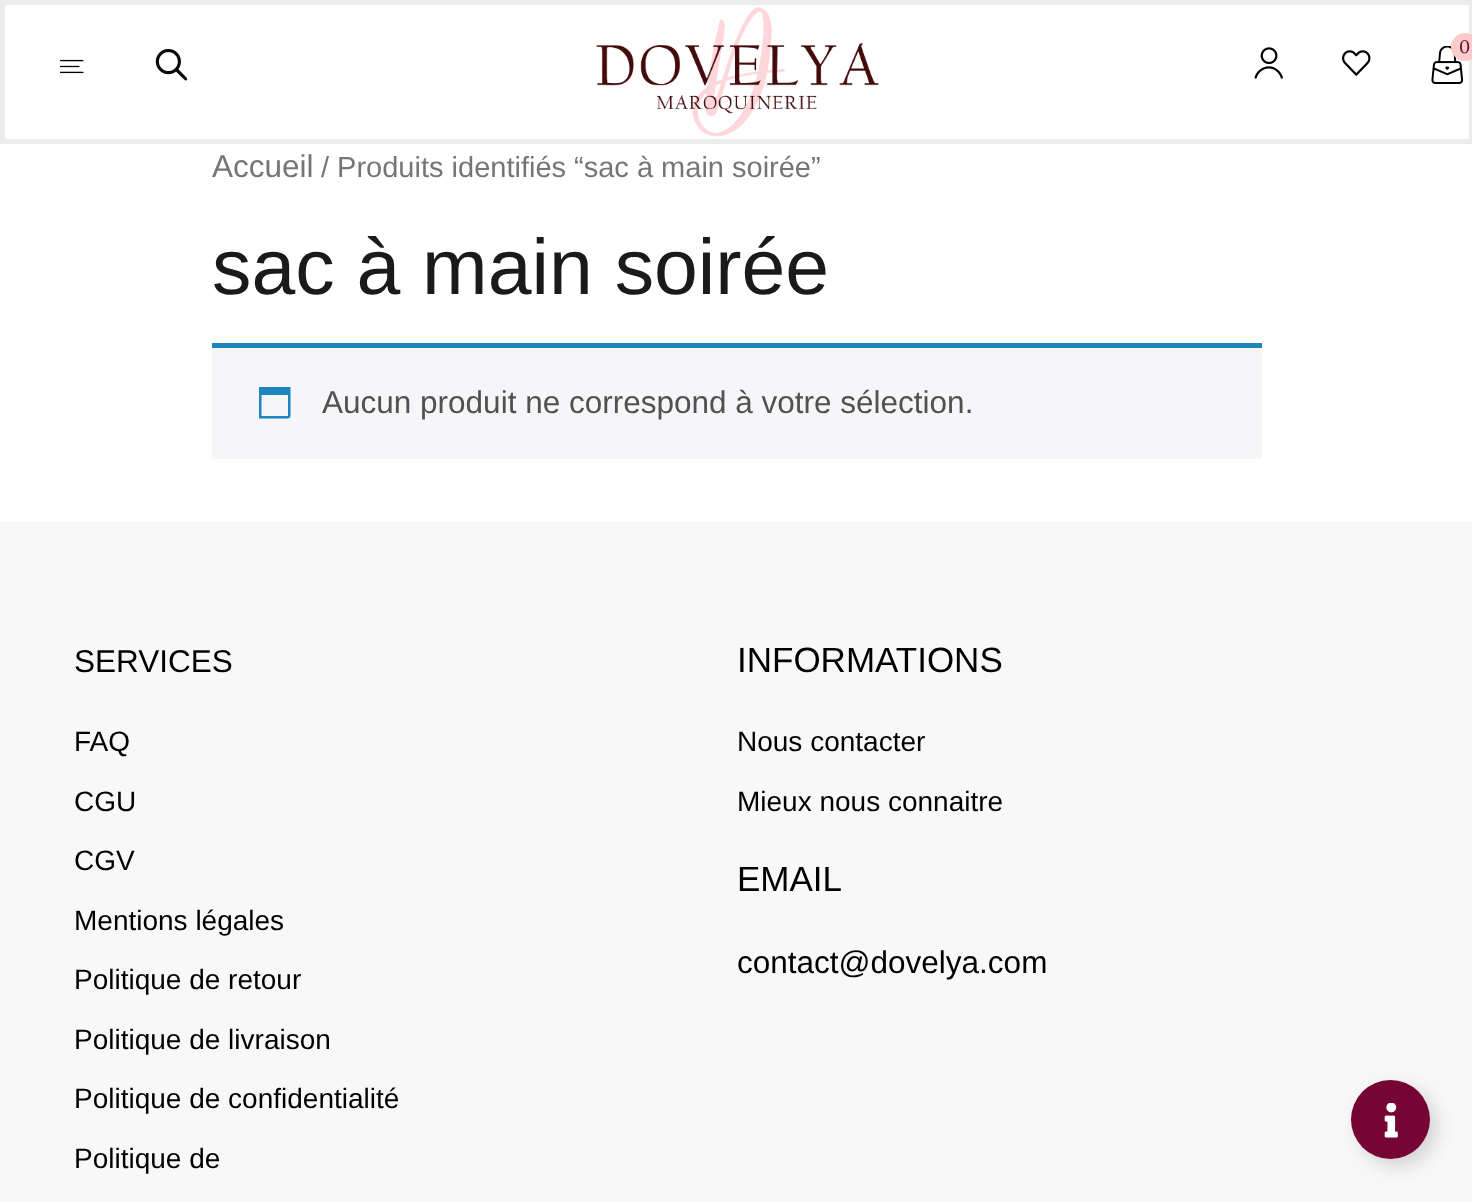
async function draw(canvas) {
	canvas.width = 1472;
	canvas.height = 1202;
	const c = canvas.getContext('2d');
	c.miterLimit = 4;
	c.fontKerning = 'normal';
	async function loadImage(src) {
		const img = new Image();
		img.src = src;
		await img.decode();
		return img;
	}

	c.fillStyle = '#fff';
	c.fillRect(0, 0, 1472, 1202);
	c.strokeStyle = '#ececec';
	c.lineWidth = 5;
	c.strokeRect(2.5, 2.5, 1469, 139);
	c.drawImage(await loadImage('img1.png'), 596, 7, 283, 130);
	c.drawImage(await loadImage('img2.png'), 1254, 47, 29, 32);
	c.drawImage(await loadImage('img3.png'), 1342, 50, 29, 26);
	c.drawImage(await loadImage('img4.png'), 1431, 46, 33, 38);
	c.fillStyle = '#facbcb';
	c.beginPath();
	c.arc(1465, 47, 14, 0, 2 * Math.PI);
	c.fill();
	c.font = '18px Lora';
	c.fillStyle = '#740535';
	c.fillText('0', 1459, 53);
	c.drawImage(await loadImage('img5.png'), 60, 59, 24, 15);
	c.drawImage(await loadImage('img6.png'), 155, 49, 33, 32);
	c.font = '31.5px Liberation Sans';
	c.fillStyle = '#767676';
	c.fillText('Accueil', 212, 177);
	c.font = '29px Liberation Sans';
	c.fillText('/ Produits identifiés “sac à main soirée”', 321, 177);
	c.font = '78.75px Liberation Sans';
	c.fillStyle = '#1a1a1a';
	c.fillText('sac à main soirée', 212, 294);
	c.fillStyle = '#f6f5f8';
	c.fillRect(212, 348, 1050, 111);
	c.fillStyle = '#1e85be';
	c.fillRect(212, 343, 1050, 5);
	c.beginPath();
	c.moveTo(288, 395);
	c.lineTo(261.5, 395);
	c.lineTo(261.5, 416);
	c.lineTo(288, 416);
	c.closePath();
	c.moveTo(290.5, 387);
	c.lineTo(290.5, 411);
	c.bezierCurveTo(290.5, 419, 291, 418.5, 283.5, 418.5);
	c.lineTo(259, 418.5);
	c.lineTo(259, 387);
	c.closePath();
	c.fill();
	c.font = '31.5px Liberation Sans';
	c.fillStyle = '#515151';
	c.fillText('Aucun produit ne correspond à votre sélection.', 322, 413);
	c.fillStyle = '#f8f8f8';
	c.fillRect(0, 522, 1472, 680);
	c.fillStyle = '#000';
	c.fillText('SERVICES', 74, 672);
	c.font = '28px Liberation Sans';
	for (const [text, x, y] of [
		['FAQ', 74, 751],
		['CGU', 74, 811],
		['CGV', 74, 870],
		['Mentions légales', 74, 930],
		['Politique de retour', 74, 989],
		['Politique de livraison', 74, 1049],
		['Politique de confidentialité', 74, 1108],
		['Politique de', 74, 1168],
	]) {
		c.fillText(text, x, y);
	}
	c.font = '35px Liberation Sans';
	c.fillText('INFORMATIONS', 737, 672);
	c.font = '28px Liberation Sans';
	c.fillText('Nous contacter', 737, 751);
	c.fillText('Mieux nous connaitre', 737, 811);
	c.font = '35px Liberation Sans';
	c.fillText('EMAIL', 737, 891);
	c.font = '31.5px Liberation Sans';
	c.fillText('contact@dovelya.com', 737, 973);
	c.fillStyle = '#00000026';
	c.filter = 'blur(9px)';
	c.beginPath();
	c.roundRect(1358, 1087, 79, 79, 39.5);
	c.fill();
	c.filter = 'none';
	c.fillStyle = '#740535';
	c.beginPath();
	c.arc(1390.5, 1119.5, 39.5, 0, 2 * Math.PI);
	c.fill();
	c.drawImage(await loadImage('img7.png'), 1384, 1103, 14, 35);
}

draw(document.querySelector('canvas'));
